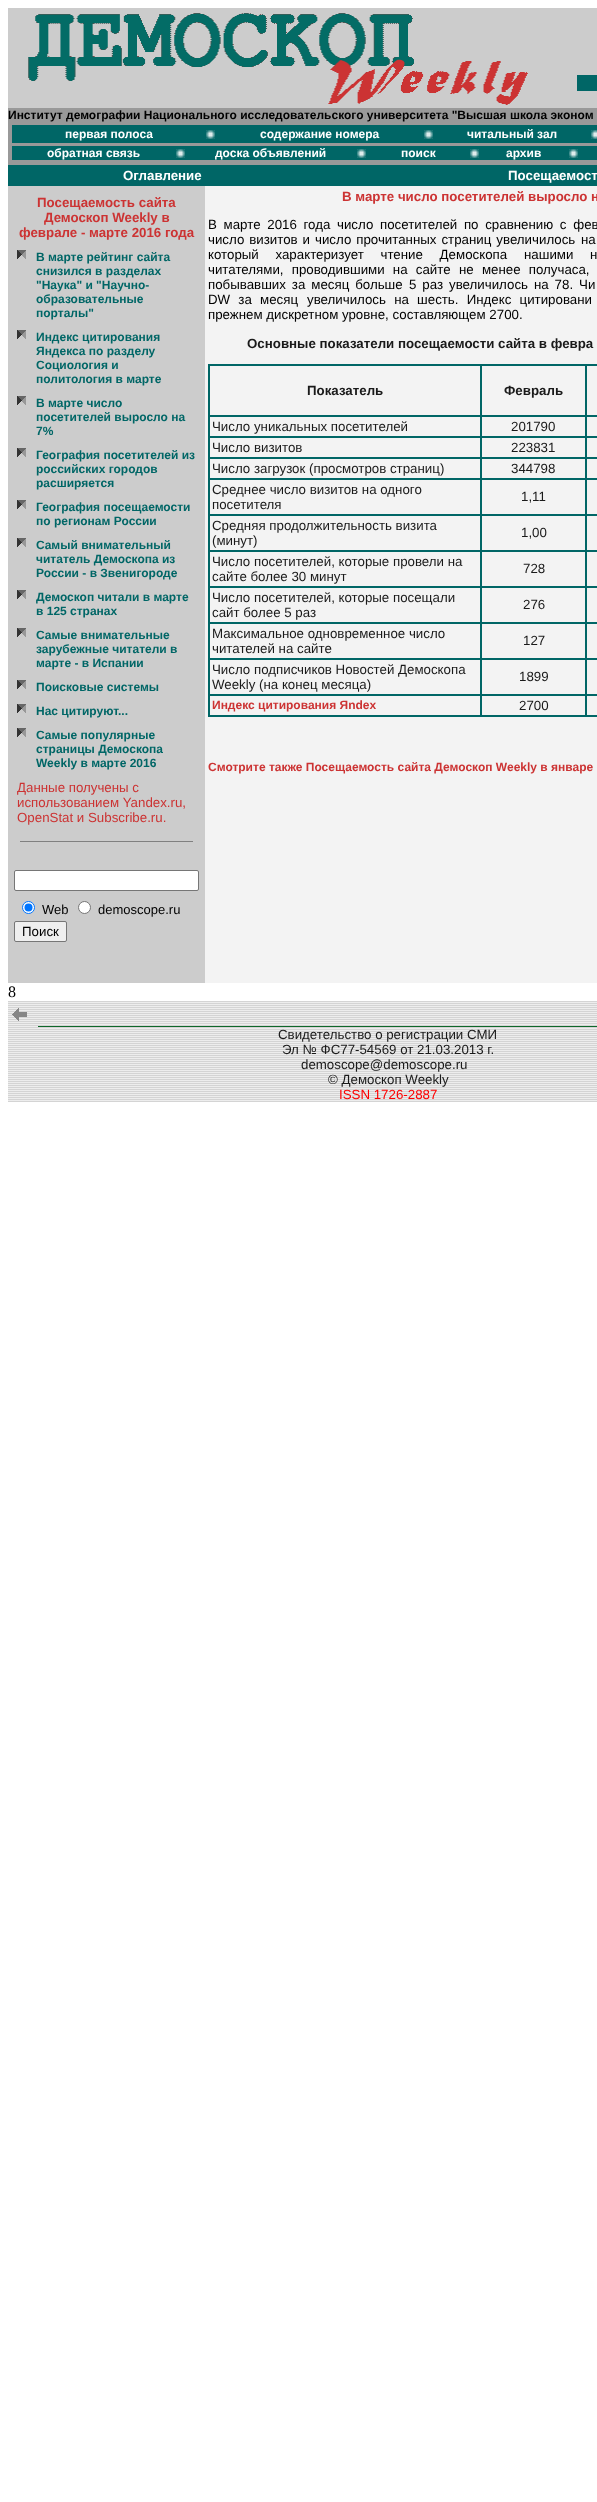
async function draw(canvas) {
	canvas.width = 597;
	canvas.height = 2502;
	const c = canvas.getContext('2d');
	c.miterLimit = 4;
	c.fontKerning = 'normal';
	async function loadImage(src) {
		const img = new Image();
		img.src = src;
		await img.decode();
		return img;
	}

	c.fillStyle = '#fff';
	c.fillRect(0, 0, 597, 2502);
	c.fillStyle = '#ccc';
	c.fillRect(8, 8, 589, 100);
	c.drawImage(await loadImage('img1.png'), 28, 13, 500, 92);
	c.fillStyle = '#066';
	c.fillRect(577, 75, 20, 16);
	c.fillStyle = '#999';
	c.fillRect(8, 108, 589, 14);
	c.font = 'bold 12px Liberation Sans';
	c.fillStyle = '#000';
	c.fillText('Институт демографии Национального исследовательского университета "Высшая школа эконом', 8, 119);
	for (const [x, y, w, h, color] of [
		[8, 122, 4, 43, '#999'],
		[12, 125, 585, 18, '#066'],
		[12, 122, 585, 3, '#999'],
	]) {
		c.fillStyle = color;
		c.fillRect(x, y, w, h);
	}
	c.fillStyle = '#fff';
	c.fillText('первая полоса', 65, 138);
	c.drawImage(await loadImage('img2.png'), 206, 130, 9, 9);
	c.fillText('содержание номера', 260, 138);
	c.drawImage(await loadImage('img2.png'), 424, 130, 9, 9);
	c.fillText('читальный зал', 467, 138);
	c.drawImage(await loadImage('img3.png'), 591, 130, 6, 9);
	c.fillStyle = '#999';
	c.fillRect(12, 143, 585, 3);
	c.fillStyle = '#066';
	c.fillRect(12, 146, 585, 14);
	c.fillStyle = '#fff';
	c.fillText('обратная связь', 47, 157);
	c.drawImage(await loadImage('img2.png'), 176, 149, 9, 9);
	c.fillText('доска объявлений', 215, 157);
	c.drawImage(await loadImage('img2.png'), 357, 149, 9, 9);
	c.fillText('поиск', 401, 157);
	c.drawImage(await loadImage('img2.png'), 470, 149, 9, 9);
	c.fillText('архив', 506, 157);
	c.drawImage(await loadImage('img2.png'), 569, 149, 9, 9);
	for (const [x, y, w, h, color] of [
		[12, 160, 585, 5, '#999'],
		[205, 186, 392, 797, '#f3f3f3'],
		[8, 165, 589, 21, '#066'],
	]) {
		c.fillStyle = color;
		c.fillRect(x, y, w, h);
	}
	c.font = 'bold 13.3px Liberation Sans';
	c.fillStyle = '#fff';
	c.fillText('Оглавление', 123, 180);
	c.fillText('Посещаемост', 508, 180);
	c.fillStyle = '#ccc';
	c.fillRect(8, 186, 197, 797);
	c.fillStyle = '#c33';
	for (const [text, x, y] of [
		['Посещаемость сайта', 37, 207],
		['Демоскоп Weekly в', 44, 222],
		['феврале - марте 2016 года', 19, 237],
	]) {
		c.fillText(text, x, y);
	}
	c.drawImage(await loadImage('img4.png'), 17, 250, 9, 9);
	c.font = 'bold 12px Liberation Sans';
	c.fillStyle = '#066';
	for (const [text, x, y] of [
		['В марте рейтинг сайта', 36, 261],
		['снизился в разделах', 36, 275],
		['"Наука" и "Научно-', 36, 289],
		['образовательные', 36, 303],
		['порталы"', 36, 317],
	]) {
		c.fillText(text, x, y);
	}
	c.drawImage(await loadImage('img4.png'), 17, 330, 9, 9);
	for (const [text, x, y] of [
		['Индекс цитирования', 36, 341],
		['Яндекса по разделу', 36, 355],
		['Социология и', 36, 369],
		['политология в марте', 36, 383],
	]) {
		c.fillText(text, x, y);
	}
	c.drawImage(await loadImage('img4.png'), 17, 396, 9, 9);
	for (const [text, x, y] of [
		['В марте число', 36, 407],
		['посетителей выросло на', 36, 421],
		['7%', 36, 435],
	]) {
		c.fillText(text, x, y);
	}
	c.drawImage(await loadImage('img4.png'), 17, 448, 9, 9);
	for (const [text, x, y] of [
		['География посетителей из', 36, 459],
		['российских городов', 36, 473],
		['расширяется', 36, 487],
	]) {
		c.fillText(text, x, y);
	}
	c.drawImage(await loadImage('img4.png'), 17, 500, 9, 9);
	c.fillText('География посещаемости', 36, 511);
	c.fillText('по регионам России', 36, 525);
	c.drawImage(await loadImage('img4.png'), 17, 538, 9, 9);
	for (const [text, x, y] of [
		['Cамый внимательный', 36, 549],
		['читатель Демоскопа из', 36, 563],
		['России - в Звенигороде', 36, 577],
	]) {
		c.fillText(text, x, y);
	}
	c.drawImage(await loadImage('img4.png'), 17, 590, 9, 9);
	c.fillText('Демоскоп читали в марте', 36, 601);
	c.fillText('в 125 странах', 36, 615);
	c.drawImage(await loadImage('img4.png'), 17, 628, 9, 9);
	for (const [text, x, y] of [
		['Самые внимательные', 36, 639],
		['зарубежные читатели в', 36, 653],
		['марте - в Испании', 36, 667],
	]) {
		c.fillText(text, x, y);
	}
	c.drawImage(await loadImage('img4.png'), 17, 680, 9, 9);
	c.fillText('Поисковые системы', 36, 691);
	c.drawImage(await loadImage('img4.png'), 17, 704, 9, 9);
	c.fillText('Нас цитируют...', 36, 715);
	c.drawImage(await loadImage('img4.png'), 17, 728, 9, 9);
	for (const [text, x, y] of [
		['Самые популярные', 36, 739],
		['страницы Демоскопа', 36, 753],
		['Weekly в марте 2016', 36, 767],
	]) {
		c.fillText(text, x, y);
	}
	c.font = '13.3px Liberation Sans';
	c.fillStyle = '#c33';
	for (const [text, x, y] of [
		['Данные получены с', 17, 792],
		['использованием Yandex.ru,', 17, 807],
		['OpenStat и Subscribe.ru.', 17, 822],
	]) {
		c.fillText(text, x, y);
	}
	c.fillStyle = '#808080';
	c.fillRect(20, 841, 173, 1);
	c.fillStyle = '#fff';
	c.beginPath();
	c.roundRect(14.5, 870.5, 184, 20, 1.5);
	c.fill();
	c.strokeStyle = '#767676';
	c.stroke();
	c.beginPath();
	c.arc(28.5, 907.5, 6, 0, 2 * Math.PI);
	c.fill();
	c.strokeStyle = '#0075ff';
	c.stroke();
	c.fillStyle = '#0075ff';
	c.beginPath();
	c.arc(28.5, 907.5, 4, 0, 2 * Math.PI);
	c.fill();
	c.font = '13px Liberation Sans';
	c.fillStyle = '#000';
	c.fillText('Web', 42, 914);
	c.fillStyle = '#fff';
	c.beginPath();
	c.arc(84.5, 907.5, 6, 0, 2 * Math.PI);
	c.fill();
	c.strokeStyle = '#767676';
	c.stroke();
	c.fillStyle = '#000';
	c.fillText('demoscope.ru', 98, 914);
	c.fillStyle = '#efefef';
	c.beginPath();
	c.roundRect(14.5, 921.5, 52, 20, 1.5);
	c.fill();
	c.stroke();
	c.font = '13.3px Liberation Sans';
	c.fillStyle = '#000';
	c.fillText('Поиск', 22, 936);
	c.font = 'bold 13.3px Liberation Sans';
	c.fillStyle = '#c33';
	c.fillText('В марте число посетителей выросло н', 342, 201);
	c.wordSpacing = '3px';
	c.font = '13.3px Liberation Sans';
	c.fillStyle = '#000';
	c.fillText('В марте 2016 года число посетителей по сравнению с фев', 208, 229);
	c.wordSpacing = '1.25px';
	c.fillText('число визитов и число прочитанных страниц увеличилось', 208, 244);
	c.fillText('на', 581, 244);
	c.wordSpacing = '13px';
	c.fillText('который характеризует чтение Демоскопа', 208, 259);
	c.fillText('нашими н', 524, 259);
	c.wordSpacing = '4.5px';
	c.fillText('читателями, проводившими на сайте', 208, 274);
	c.fillText('не менее получаса,', 459, 274);
	c.wordSpacing = '2.25px';
	c.fillText('побывавших за месяц больше', 208, 289);
	c.fillText('5 раз увеличилось на 78. Чи', 409, 289);
	c.wordSpacing = '4.5px';
	c.fillText('DW за месяц', 208, 304);
	c.fillText('увеличилось на шесть. Индекс цитировани', 307, 304);
	c.wordSpacing = '0px';
	c.fillText('прежнем дискретном уровне, составляющем 2700.', 208, 319);
	c.font = 'bold 13.3px Liberation Sans';
	c.fillStyle = '#1a1a1a';
	c.fillText('Основные показатели посещаемости сайта в февра', 247, 348);
	c.strokeStyle = '#066';
	c.strokeRect(208.5, 364.5, 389, 352);
	c.strokeRect(209.5, 365.5, 271, 50);
	c.fillText('Показатель', 307, 395);
	c.strokeRect(481.5, 365.5, 104, 50);
	c.fillText('Февраль', 504, 395);
	c.strokeRect(586.5, 365.5, 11, 50);
	c.strokeRect(209.5, 416.5, 271, 20);
	c.font = '13.3px Liberation Sans';
	c.fillText('Число уникальных посетителей', 212, 431);
	c.strokeRect(481.5, 416.5, 104, 20);
	c.fillText('201790', 511, 431);
	c.strokeRect(586.5, 416.5, 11, 20);
	c.strokeRect(209.5, 437.5, 271, 20);
	c.fillText('Число визитов', 212, 452);
	c.strokeRect(481.5, 437.5, 104, 20);
	c.fillText('223831', 511, 452);
	c.strokeRect(586.5, 437.5, 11, 20);
	c.strokeRect(209.5, 458.5, 271, 20);
	c.fillText('Число загрузок (просмотров страниц)', 212, 473);
	c.strokeRect(481.5, 458.5, 104, 20);
	c.fillText('344798', 511, 473);
	c.strokeRect(586.5, 458.5, 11, 20);
	c.strokeRect(209.5, 479.5, 271, 35);
	c.fillText('Среднее число визитов на одного', 212, 494);
	c.fillText('посетителя', 212, 509);
	c.strokeRect(481.5, 479.5, 104, 35);
	c.fillText('1,11', 521, 501);
	c.strokeRect(586.5, 479.5, 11, 35);
	c.strokeRect(209.5, 515.5, 271, 35);
	c.fillText('Средняя продолжительность визита', 212, 530);
	c.fillText('(минут)', 212, 545);
	c.strokeRect(481.5, 515.5, 104, 35);
	c.fillText('1,00', 521, 537);
	c.strokeRect(586.5, 515.5, 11, 35);
	c.strokeRect(209.5, 551.5, 271, 35);
	c.fillText('Число посетителей, которые провели на', 212, 566);
	c.fillText('сайте более 30 минут', 212, 581);
	c.strokeRect(481.5, 551.5, 104, 35);
	c.fillText('728', 523, 573);
	c.strokeRect(586.5, 551.5, 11, 35);
	c.strokeRect(209.5, 587.5, 271, 35);
	c.fillText('Число посетителей, которые посещали', 212, 602);
	c.fillText('сайт более 5 раз', 212, 617);
	c.strokeRect(481.5, 587.5, 104, 35);
	c.fillText('276', 523, 609);
	c.strokeRect(586.5, 587.5, 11, 35);
	c.strokeRect(209.5, 623.5, 271, 35);
	c.fillText('Максимальное одновременное число', 212, 638);
	c.fillText('читателей на сайте', 212, 653);
	c.strokeRect(481.5, 623.5, 104, 35);
	c.fillText('127', 523, 645);
	c.strokeRect(586.5, 623.5, 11, 35);
	c.strokeRect(209.5, 659.5, 271, 35);
	c.fillText('Число подписчиков Новостей Демоскопа', 212, 674);
	c.fillText('Weekly (на конец месяца)', 212, 689);
	c.strokeRect(481.5, 659.5, 104, 35);
	c.fillText('1899', 519, 681);
	c.strokeRect(586.5, 659.5, 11, 35);
	c.strokeRect(209.5, 695.5, 271, 20);
	c.font = 'bold 12px Liberation Sans';
	c.fillStyle = '#c33';
	c.fillText('Индекс цитирования Яndex', 212, 709);
	c.strokeRect(481.5, 695.5, 104, 20);
	c.font = '13.3px Liberation Sans';
	c.fillStyle = '#1a1a1a';
	c.fillText('2700', 519, 710);
	c.strokeRect(586.5, 695.5, 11, 20);
	c.font = 'bold 12px Liberation Sans';
	c.fillStyle = '#c33';
	c.fillText('Смотрите также Посещаемость сайта Демоскоп Weekly в январе', 208, 771);
	c.font = '16px Liberation Serif';
	c.fillStyle = '#000';
	c.fillText('8', 8, 997);
	c.drawImage(await loadImage('img5.png'), 8, 1001, 589, 26);
	c.drawImage(await loadImage('img6.png'), 12, 1008, 15, 13);
	c.fillStyle = '#0d6729';
	c.fillRect(38, 1026, 559, 1);
	c.drawImage(await loadImage('img7.png'), 8, 1027, 589, 75);
	c.font = '13.3px Liberation Sans';
	c.fillStyle = '#1a1a1a';
	for (const [text, x, y] of [
		['Свидетельство о регистрации СМИ', 278, 1039],
		['Эл № ФС77-54569 от 21.03.2013 г.', 282, 1054],
		['demoscope@demoscope.ru', 301, 1069],
		['© Демоскоп Weekly', 328, 1084],
	]) {
		c.fillText(text, x, y);
	}
	c.fillStyle = '#f00';
	c.fillText('ISSN 1726-2887', 339, 1099);
}

draw(document.querySelector('canvas'));
